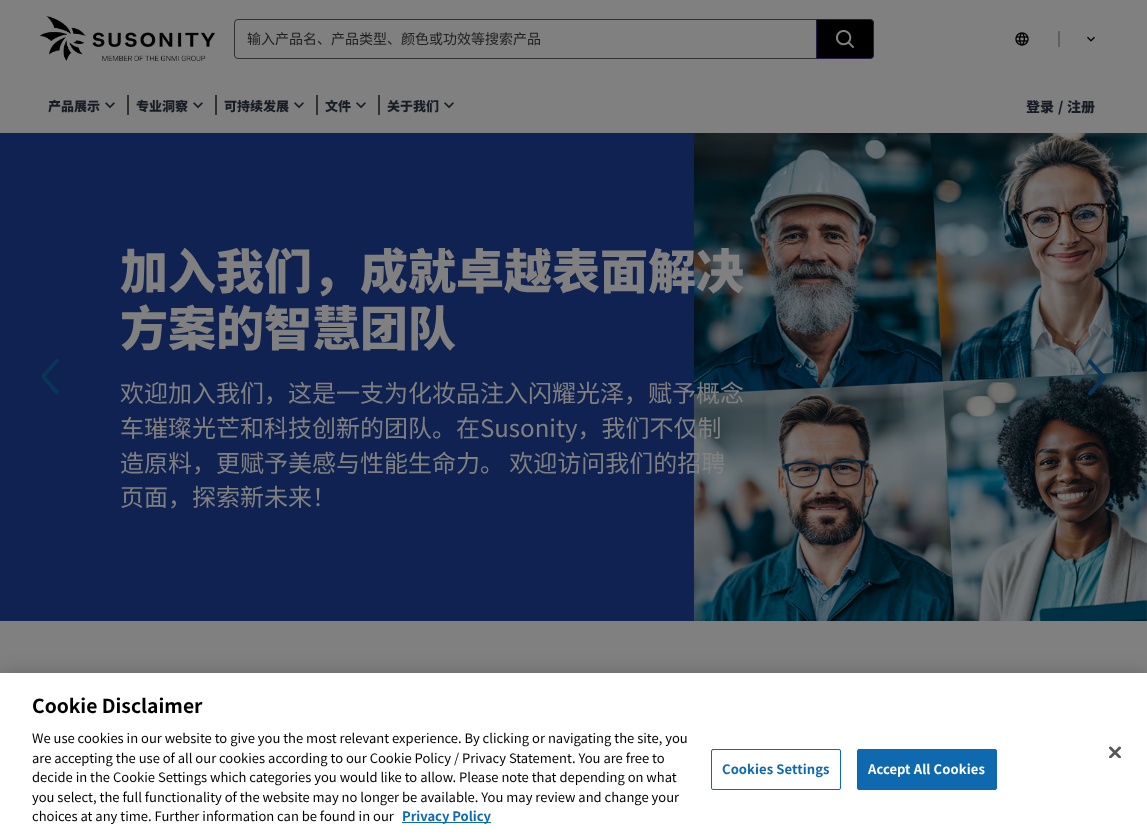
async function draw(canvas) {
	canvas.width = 1147;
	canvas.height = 836;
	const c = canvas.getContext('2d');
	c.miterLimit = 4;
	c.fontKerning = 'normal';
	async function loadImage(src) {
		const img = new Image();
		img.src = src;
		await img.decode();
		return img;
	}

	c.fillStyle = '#808080';
	c.fillRect(0, 0, 1147, 836);
	c.save();
	c.beginPath();
	c.rect(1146, 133, 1, 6);
	c.clip();
	c.fillStyle = '#00000029';
	c.filter = 'blur(4px)';
	c.beginPath();
	c.rect(0, 80, 1147, 56);
	c.fill();
	c.filter = 'none';
	c.restore();
	c.fillRect(2, 75, 1143, 2);
	c.drawImage(await loadImage('img1.png'), 40, 16, 175, 45);
	c.beginPath();
	c.roundRect(234.5, 19.5, 639, 39, 3.5);
	c.strokeStyle = '#313131';
	c.stroke();
	c.font = '14px Noto Sans SC';
	c.fillStyle = '#202020';
	c.fillText('输入产品名、产品类型、颜色或功效等搜索产品', 247, 44);
	c.fillStyle = '#000';
	c.beginPath();
	c.roundRect(816.5, 19.5, 57, 39, [0, 3.5, 3.5, 0]);
	c.fill();
	c.strokeStyle = '#281949';
	c.stroke();
	c.drawImage(await loadImage('img2.png'), 836, 30, 18, 18);
	c.fillStyle = '#606060';
	c.fillRect(1058, 31, 2, 16);
	c.drawImage(await loadImage('img3.png'), 1015, 32, 14, 14);
	c.drawImage(await loadImage('img4.png'), 1087, 36, 8, 6);
	c.font = '900 13px Noto Sans SC';
	c.fillStyle = '#181c25';
	c.fillText('产品展示', 48, 111);
	c.drawImage(await loadImage('img5.png'), 105, 102, 10, 7);
	c.fillStyle = '#313131';
	c.fillRect(127, 95, 2, 20);
	c.fillStyle = '#181c25';
	c.fillText('专业洞察', 136, 111);
	c.drawImage(await loadImage('img5.png'), 193, 102, 10, 7);
	c.fillStyle = '#313131';
	c.fillRect(215, 95, 2, 20);
	c.fillStyle = '#181c25';
	c.fillText('可持续发展', 224, 111);
	c.drawImage(await loadImage('img5.png'), 294, 102, 10, 7);
	c.fillStyle = '#313131';
	c.fillRect(316, 95, 2, 20);
	c.fillStyle = '#181c25';
	c.fillText('文件', 325, 111);
	c.drawImage(await loadImage('img5.png'), 356, 102, 10, 7);
	c.fillStyle = '#313131';
	c.fillRect(378, 95, 2, 20);
	c.fillStyle = '#181c25';
	c.fillText('关于我们', 387, 111);
	c.drawImage(await loadImage('img5.png'), 444, 102, 10, 7);
	c.font = '900 14px Noto Sans SC';
	for (const [text, x, y] of [
		['登录', 1026, 112],
		['/', 1058, 112],
		['注册', 1067, 112],
	]) {
		c.fillText(text, x, y);
	}
	c.drawImage(await loadImage('img6.png'), 0, 133, 1147, 488);
	c.beginPath();
	c.moveTo(57, 360.5);
	c.lineTo(43, 376.5);
	c.lineTo(57, 392.5);
	c.strokeStyle = '#083558';
	c.lineWidth = 4;
	c.lineCap = 'round';
	c.lineJoin = 'round';
	c.stroke();
	c.font = '900 48px Noto Sans SC';
	c.fillStyle = '#808080';
	c.fillText('加入我们，成就卓越表面解决', 120, 289);
	c.fillText('方案的智慧团队', 120, 346);
	c.font = '24px Noto Sans SC';
	for (const [text, x, y] of [
		['欢迎加入我们，这是一支为化妆品注入闪耀光泽，赋予概念', 120, 402],
		['车璀璨光芒和科技创新的团队。在Susonity，我们不仅制', 120, 437],
		['造原料，更赋予美感与性能生命力。 欢迎访问我们的招聘', 120, 472],
		['页面，探索新未来！', 120, 506],
	]) {
		c.fillText(text, x, y);
	}
	c.beginPath();
	c.moveTo(1090, 393.5);
	c.lineTo(1104, 377.5);
	c.lineTo(1090, 361.5);
	c.stroke();
	c.fillStyle = '#00000033';
	c.filter = 'blur(9px)';
	c.beginPath();
	c.rect(0, 673, 1147, 163);
	c.fill();
	c.filter = 'none';
	c.fillStyle = '#fff';
	c.fillRect(0, 673, 1147, 163);
	c.font = 'bold 19.25px Noto Sans SC';
	c.fillStyle = '#000';
	c.fillText('Cookie Disclaimer', 32, 713);
	c.font = '13px Noto Sans SC';
	for (const [text, x, y] of [
		['We use cookies in our website to give you the most relevant experience. By clicking or navigating the site, you', 32, 743],
		['are accepting the use of all our cookies according to our Cookie Policy / Privacy Statement. You are free to', 32, 763],
		['decide in the Cookie Settings which categories you would like to allow. Please note that depending on what', 32, 782],
		['you select, the full functionality of the website may no longer be available. You may review and change your', 32, 802],
		['choices at any time. Further information can be found in our', 32, 821],
	]) {
		c.fillText(text, x, y);
	}
	c.fillStyle = '#0f69af';
	c.fillRect(402, 822, 89, 1);
	c.font = 'bold 13px Noto Sans SC';
	c.fillText('Privacy Policy', 402, 821);
	c.beginPath();
	c.roundRect(711.5, 749.5, 129, 40, 1.5);
	c.strokeStyle = '#0f69af';
	c.lineWidth = 1;
	c.lineJoin = 'miter';
	c.stroke();
	c.letterSpacing = '0.1px';
	c.fillText('Cookies Settings', 722, 774);
	c.beginPath();
	c.roundRect(857.5, 749.5, 139, 40, 1.5);
	c.fill();
	c.stroke();
	c.fillStyle = '#fff';
	c.fillText('Accept All Cookies', 868, 774);
	c.drawImage(await loadImage('img7.png'), 1109, 746, 12, 12);
}

draw(document.querySelector('canvas'));
